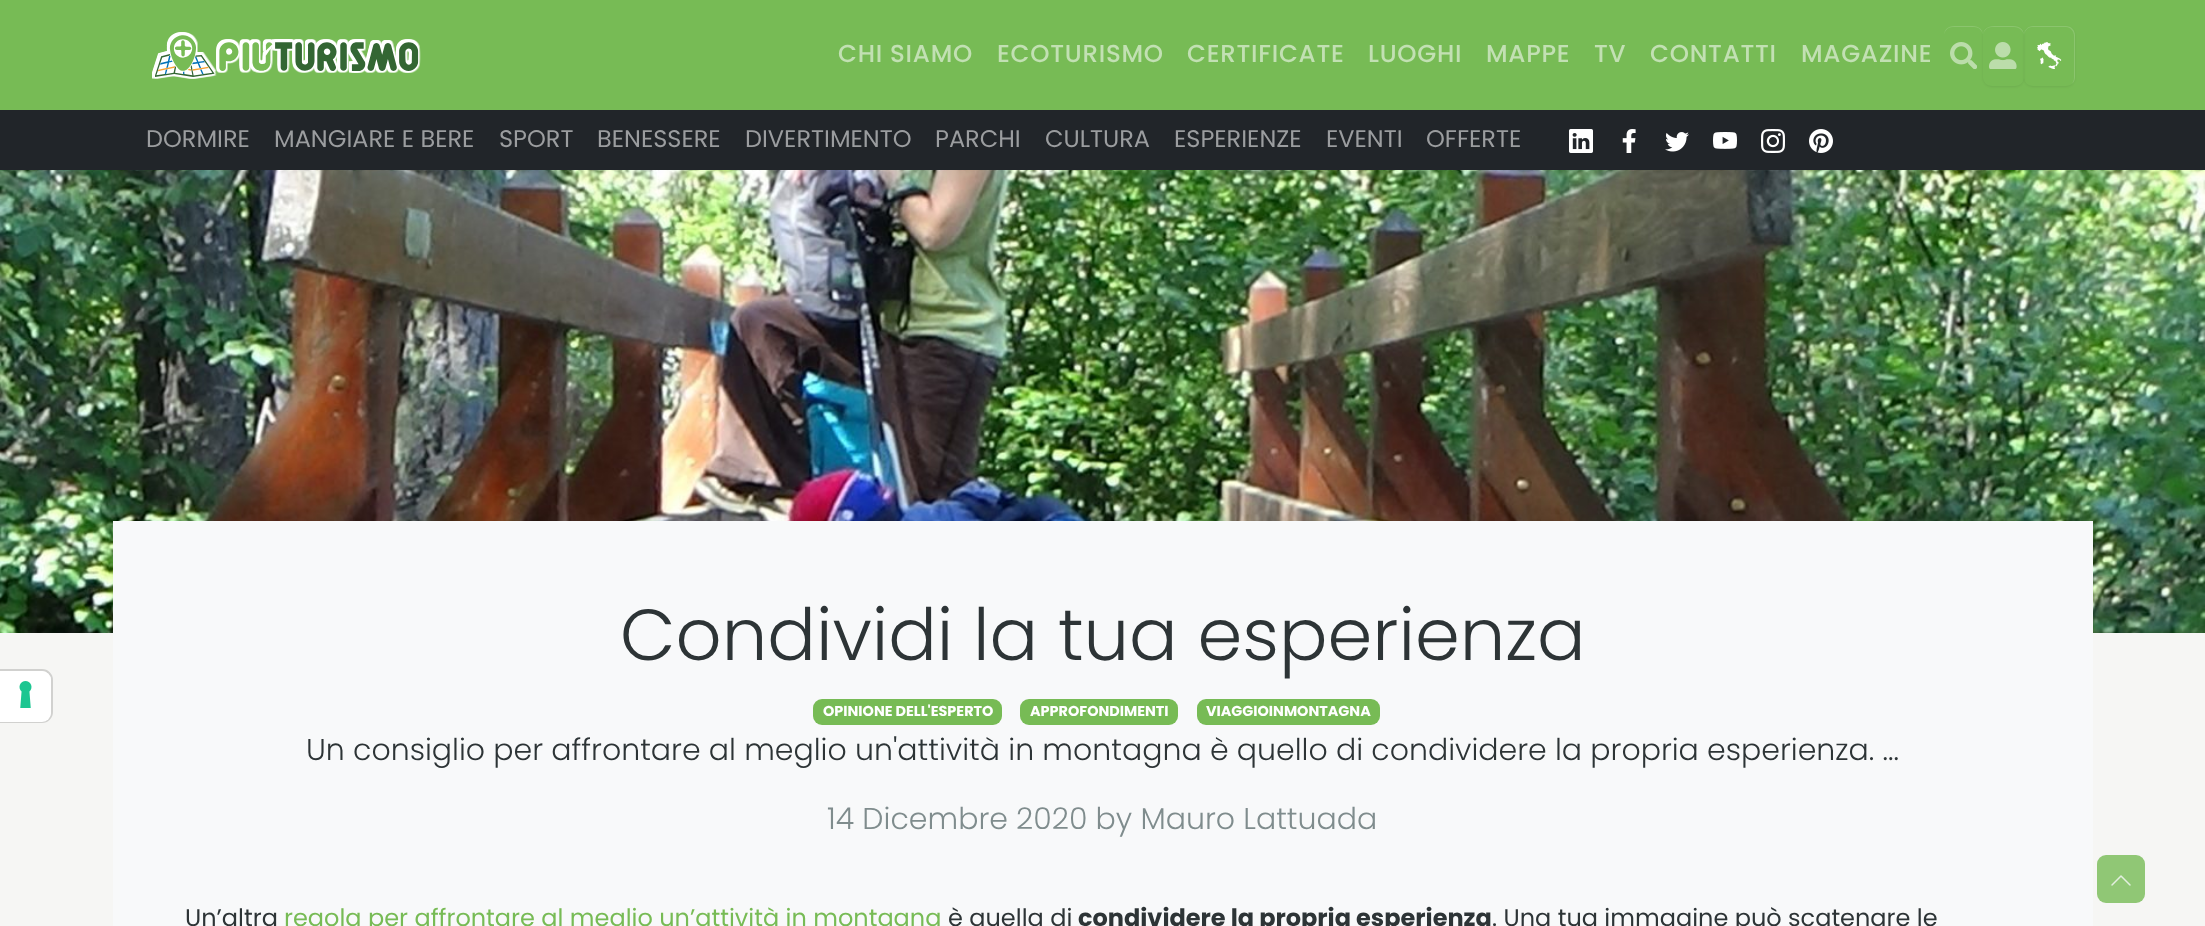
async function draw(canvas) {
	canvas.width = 2205;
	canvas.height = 926;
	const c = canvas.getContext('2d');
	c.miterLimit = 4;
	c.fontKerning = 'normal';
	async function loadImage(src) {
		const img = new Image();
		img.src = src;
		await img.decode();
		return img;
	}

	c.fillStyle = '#f6f6f4';
	c.fillRect(0, 0, 2205, 926);
	c.fillStyle = '#7b5';
	c.fillRect(0, 0, 2205, 110);
	c.drawImage(await loadImage('img1.png'), 152, 32, 269, 47);
	c.letterSpacing = '0.75px';
	c.font = '500 24.5px Poppins';
	c.fillStyle = '#c2e0b3';
	for (const [text, x, y] of [
		['CHI SIAMO', 838, 62],
		['ECOTURISMO', 997, 62],
		['CERTIFICATE', 1187, 62],
		['LUOGHI', 1368, 62],
		['MAPPE', 1486, 62],
		['TV', 1594, 62],
		['CONTATTI', 1650, 62],
		['MAGAZINE', 1801, 62],
	]) {
		c.fillText(text, x, y);
	}
	c.fillStyle = '#8bc56e';
	c.beginPath();
	c.moveTo(1953, 27);
	c.lineTo(1974, 27);
	c.bezierCurveTo(1979, 27, 1983, 31, 1983, 36);
	c.bezierCurveTo(1983, 24, 1972, 26, 1963.5, 26);
	c.bezierCurveTo(1955, 26, 1944, 24, 1944, 36);
	c.bezierCurveTo(1944, 31, 1948, 27, 1953, 27);
	c.closePath();
	c.fill();
	c.drawImage(await loadImage('img2.png'), 1950, 42, 27, 27);
	c.save();
	c.beginPath();
	c.moveTo(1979, 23);
	c.lineTo(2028, 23);
	c.lineTo(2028, 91);
	c.lineTo(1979, 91);
	c.closePath();
	c.moveTo(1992, 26);
	c.lineTo(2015, 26);
	c.bezierCurveTo(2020, 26, 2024, 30, 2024, 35);
	c.lineTo(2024, 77);
	c.bezierCurveTo(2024, 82, 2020, 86, 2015, 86);
	c.lineTo(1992, 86);
	c.bezierCurveTo(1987, 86, 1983, 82, 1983, 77);
	c.lineTo(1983, 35);
	c.bezierCurveTo(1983, 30, 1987, 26, 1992, 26);
	c.closePath();
	c.clip('evenodd');
	c.fillStyle = '#00000012';
	c.filter = 'blur(1px)';
	c.beginPath();
	c.roundRect(1983, 27, 41, 60, 9);
	c.fill();
	c.filter = 'none';
	c.restore();
	c.beginPath();
	c.moveTo(1992, 27);
	c.lineTo(2014, 27);
	c.bezierCurveTo(2019, 27, 2024, 31, 2024, 36);
	c.bezierCurveTo(2024, 24, 2012, 26, 2004, 26);
	c.bezierCurveTo(1995, 26, 1983, 24, 1983, 36);
	c.bezierCurveTo(1983, 31, 1987, 27, 1992, 27);
	c.closePath();
	c.fill();
	c.drawImage(await loadImage('img3.png'), 1989, 42, 28, 27);
	c.save();
	c.beginPath();
	c.moveTo(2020, 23);
	c.lineTo(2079, 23);
	c.lineTo(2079, 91);
	c.lineTo(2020, 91);
	c.closePath();
	c.moveTo(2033, 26);
	c.lineTo(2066, 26);
	c.bezierCurveTo(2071, 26, 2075, 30, 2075, 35);
	c.lineTo(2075, 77);
	c.bezierCurveTo(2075, 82, 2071, 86, 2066, 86);
	c.lineTo(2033, 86);
	c.bezierCurveTo(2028, 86, 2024, 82, 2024, 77);
	c.lineTo(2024, 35);
	c.bezierCurveTo(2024, 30, 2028, 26, 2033, 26);
	c.closePath();
	c.clip('evenodd');
	c.fillStyle = '#00000012';
	c.filter = 'blur(1px)';
	c.beginPath();
	c.roundRect(2024, 27, 51, 60, 9);
	c.fill();
	c.filter = 'none';
	c.restore();
	c.fillStyle = '#ffffff26';
	c.beginPath();
	c.moveTo(2032, 27);
	c.lineTo(2066, 27);
	c.bezierCurveTo(2070, 27, 2074, 31, 2074, 36);
	c.lineTo(2074, 78);
	c.bezierCurveTo(2074, 80, 2073, 82, 2072, 84);
	c.bezierCurveTo(2074, 82, 2075, 80, 2075, 77);
	c.lineTo(2075, 35);
	c.bezierCurveTo(2075, 30, 2071, 26, 2066, 26);
	c.lineTo(2033, 26);
	c.bezierCurveTo(2028, 26, 2024, 30, 2024, 35);
	c.lineTo(2024, 36);
	c.bezierCurveTo(2024, 31, 2028, 27, 2032, 27);
	c.closePath();
	c.fill();
	c.drawImage(await loadImage('img4.png'), 2037, 42, 25, 27);
	c.fillStyle = '#212529';
	c.fillRect(0, 110, 2205, 60);
	c.letterSpacing = '0px';
	c.font = '24px Poppins';
	c.fillStyle = '#9b9d9f';
	for (const [text, x, y] of [
		['DORMIRE', 146, 147],
		['MANGIARE E BERE', 274, 147],
		['SPORT', 499, 147],
		['BENESSERE', 597, 147],
		['DIVERTIMENTO', 745, 147],
		['PARCHI', 935, 147],
		['CULTURA', 1045, 147],
		['ESPERIENZE', 1174, 147],
		['EVENTI', 1326, 147],
		['OFFERTE', 1426, 147],
	]) {
		c.fillText(text, x, y);
	}
	c.drawImage(await loadImage('img5.png'), 1569, 129, 24, 24);
	c.drawImage(await loadImage('img6.png'), 1622, 129, 14, 24);
	c.drawImage(await loadImage('img7.png'), 1665, 132, 24, 20);
	c.drawImage(await loadImage('img8.png'), 1713, 132, 24, 17);
	c.drawImage(await loadImage('img9.png'), 1761, 129, 24, 24);
	c.drawImage(await loadImage('img10.png'), 1809, 129, 24, 24);
	c.beginPath();
	c.moveTo(0, 670);
	c.lineTo(42, 670);
	c.bezierCurveTo(47.5, 670, 52, 674.5, 52, 680);
	c.lineTo(52, 712);
	c.bezierCurveTo(52, 717.5, 47.5, 722, 42, 722);
	c.lineTo(0, 722);
	c.closePath();
	c.strokeStyle = '#d1d1cf';
	c.lineWidth = 2;
	c.stroke();
	c.fillStyle = '#fff';
	c.beginPath();
	c.roundRect(0, 671, 51, 51, [0, 9, 9, 0]);
	c.fill();
	c.drawImage(await loadImage('img11.png'), 19, 681, 13, 27);
	c.drawImage(await loadImage('img12.png'), 0, 170, 2205, 463);
	c.fillStyle = '#f8f9fa';
	c.fillRect(113, 521, 1980, 405);
	c.font = '300 72px Poppins';
	c.fillStyle = '#2d3436';
	c.fillText('Condividi la tua esperienza', 620, 660);
	c.fillStyle = '#7b5';
	c.beginPath();
	c.roundRect(813, 699, 189, 26, 9);
	c.fill();
	c.font = 'bold 14.4px Poppins';
	c.fillStyle = '#fff';
	c.fillText('OPINIONE DELL\'ESPERTO', 823, 716);
	c.fillStyle = '#7b5';
	c.beginPath();
	c.roundRect(1020, 699, 158, 26, 9);
	c.fill();
	c.fillStyle = '#fff';
	c.fillText('APPROFONDIMENTI', 1030, 716);
	c.fillStyle = '#7b5';
	c.beginPath();
	c.roundRect(1197, 699, 183, 26, 9);
	c.fill();
	c.fillStyle = '#fff';
	c.fillText('VIAGGIOINMONTAGNA', 1206, 716);
	c.font = '300 30px Poppins';
	c.fillStyle = '#2d3436';
	c.fillText('Un consiglio per affrontare al meglio un\'attività in montagna è quello di condividere la propria esperienza. ...', 306, 760);
	c.fillStyle = '#7f8c8d';
	c.fillText('14 Dicembre 2020 by Mauro Lattuada', 827, 829);
	c.font = '24px Poppins';
	c.fillStyle = '#2d3436';
	c.fillText('Un’altra', 185, 926);
	c.fillStyle = '#7b5';
	c.fillText('regola per affrontare al meglio un’attività in montagna', 284, 926);
	c.fillStyle = '#2d3436';
	c.fillText('è quella di', 948, 926);
	c.font = 'bold 24px Poppins';
	c.fillText('condividere la propria esperienza', 1078, 926);
	c.font = '24px Poppins';
	c.fillText('. Una tua immagine può scatenare le', 1492, 926);
	c.fillStyle = '#90c775';
	c.beginPath();
	c.roundRect(2097, 855, 48, 48, 9);
	c.fill();
	c.drawImage(await loadImage('img13.png'), 2111, 875, 20, 11);
}

draw(document.querySelector('canvas'));
